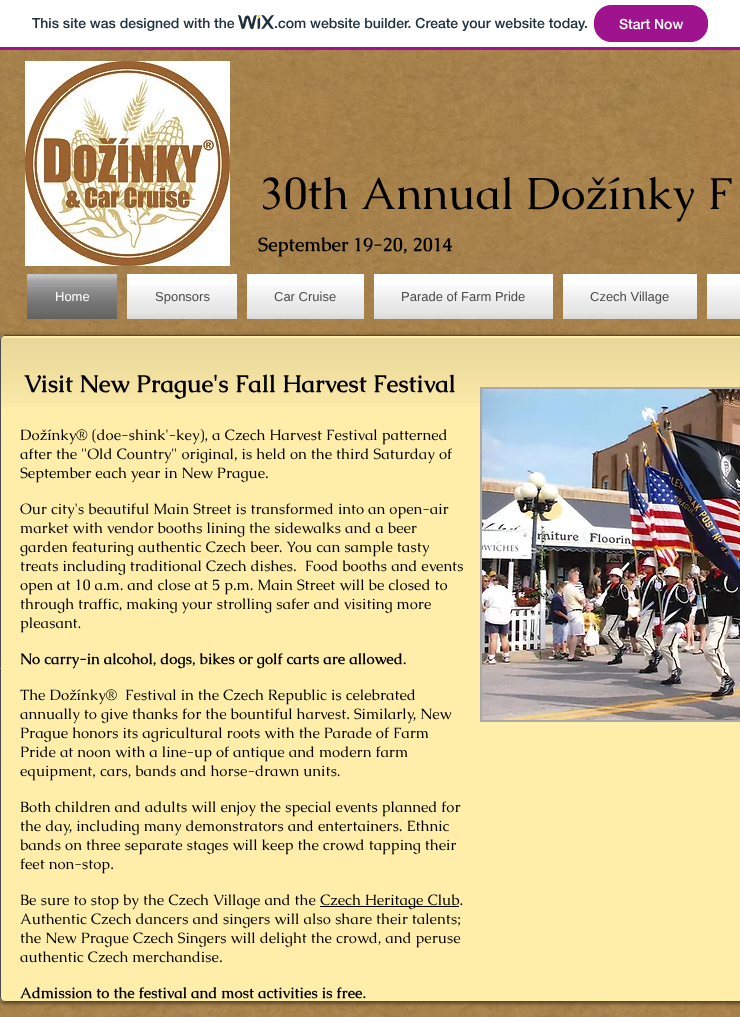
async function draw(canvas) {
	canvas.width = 740;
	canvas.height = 1017;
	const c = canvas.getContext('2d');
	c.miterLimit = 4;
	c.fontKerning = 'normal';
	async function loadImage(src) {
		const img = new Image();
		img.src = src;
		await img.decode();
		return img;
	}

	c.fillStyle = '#fff';
	c.fillRect(0, 0, 740, 1017);
	c.fillStyle = '#a0138e';
	c.fillRect(0, 47, 740, 3);
	c.font = '500 14px "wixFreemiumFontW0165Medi"';
	c.fillStyle = '#20303c';
	c.fillText('This site was designed with the', 32, 28);
	c.drawImage(await loadImage('img1.png'), 238, 15, 36, 15);
	c.fillText('.com website builder. Create your website today.', 274, 28);
	c.fillStyle = '#a0138e';
	c.beginPath();
	c.roundRect(594.5, 5.5, 113, 36, 16.5);
	c.fill();
	c.strokeStyle = '#a0138e';
	c.stroke();
	c.fillStyle = '#fff';
	c.fillText('Start Now', 619, 29);
	c.drawImage(await loadImage('img2.png'), 0, 50, 740, 967);
	c.drawImage(await loadImage('img3.png'), 25, 61, 205, 205);
	c.font = '45px Caudex';
	c.fillStyle = '#000';
	c.fillText('30th Annual Dožínky F', 259, 209);
	c.font = 'bold 19px Caudex';
	c.fillText('September 19-20, 2014', 258, 251);
	c.fillStyle = '#717070';
	c.fillRect(27, 274, 90, 45);
	c.drawImage(await loadImage('img4.png'), 27, 274, 90, 44);
	c.drawImage(await loadImage('img5.png'), 27, 287, 90, 32);
	c.font = '13px Liberation Sans';
	c.fillStyle = '#fff';
	c.fillText('Home', 55, 301);
	c.fillRect(127, 274, 110, 45);
	c.drawImage(await loadImage('img6.png'), 127, 285, 110, 34);
	c.fillStyle = '#4a4a4a';
	c.fillText('Sponsors', 155, 301);
	c.fillStyle = '#fff';
	c.fillRect(247, 274, 117, 45);
	c.drawImage(await loadImage('img7.png'), 247, 285, 117, 34);
	c.fillStyle = '#4a4a4a';
	c.fillText('Car Cruise', 274, 301);
	c.fillStyle = '#fff';
	c.fillRect(374, 274, 179, 45);
	c.drawImage(await loadImage('img8.png'), 374, 285, 179, 34);
	c.fillStyle = '#4a4a4a';
	c.fillText('Parade of Farm Pride', 401, 301);
	c.fillStyle = '#fff';
	c.fillRect(563, 274, 134, 45);
	c.drawImage(await loadImage('img9.png'), 563, 285, 134, 34);
	c.fillStyle = '#4a4a4a';
	c.fillText('Czech Village', 590, 301);
	c.fillStyle = '#fff';
	c.fillRect(707, 274, 33, 45);
	c.drawImage(await loadImage('img10.png'), 707, 285, 33, 34);
	c.fillStyle = '#00000099';
	c.filter = 'blur(2px)';
	c.beginPath();
	c.roundRect(0, 336, 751, 667, 5);
	c.fill();
	c.filter = 'none';
	c.fillStyle = '#fea';
	c.beginPath();
	c.roundRect(0, 335, 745, 667, 5);
	c.fill();
	c.drawImage(await loadImage('img11.png'), 0, 338, 740, 69);
	c.beginPath();
	c.roundRect(0.5, 335.5, 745, 666, 4.5);
	c.strokeStyle = '#4a4a4a';
	c.stroke();
	c.font = 'bold 24px Caudex';
	c.fillStyle = '#000';
	c.fillText('Visit New Prague\'s Fall Harvest Festival', 24, 392);
	c.fillStyle = '#aaa8a8';
	c.fillRect(480, 387, 260, 335);
	c.drawImage(await loadImage('img12.png'), 482, 389, 258, 331);
	c.font = '15px Caudex';
	c.fillStyle = '#000';
	for (const [text, x, y] of [
		['Dožínky® (doe-shink\'-key), a Czech Harvest Festival patterned', 20, 440],
		['after the "Old Country" original, is held on the third Saturday of', 20, 459],
		['September each year in New Prague.', 20, 478],
		['Our city\'s beautiful Main Street is transformed into an open-air', 20, 514],
		['market with vendor booths lining the sidewalks and a beer', 20, 533],
		['garden featuring authentic Czech beer. You can sample tasty', 20, 552],
		['treats including traditional Czech dishes.  Food booths and events', 20, 571],
		['open at 10 a.m. and close at 5 p.m. Main Street will be closed to', 20, 590],
		['through traffic, making your strolling safer and visiting more', 20, 609],
		['pleasant.', 20, 628],
	]) {
		c.fillText(text, x, y);
	}
	c.font = 'bold 15px Caudex';
	c.fillText('No carry-in alcohol, dogs, bikes or golf carts are allowed.', 20, 664);
	c.font = '15px Caudex';
	for (const [text, x, y] of [
		['The Dožínky®  Festival in the Czech Republic is celebrated', 20, 700],
		['annually to give thanks for the bountiful harvest. Similarly, New', 20, 719],
		['Prague honors its agricultural roots with the Parade of Farm', 20, 738],
		['Pride at noon with a line-up of antique and modern farm', 20, 757],
		['equipment, cars, bands and horse-drawn units.', 20, 776],
		['Both children and adults will enjoy the special events planned for', 20, 812],
		['the day, including many demonstrators and entertainers. Ethnic', 20, 831],
		['bands on three separate stages will keep the crowd tapping their', 20, 850],
		['feet non-stop.', 20, 869],
		['Be sure to stop by the Czech Village and the', 20, 905],
	]) {
		c.fillText(text, x, y);
	}
	c.fillRect(320, 906, 139, 1);
	for (const [text, x, y] of [
		['Czech Heritage Club.', 320, 905],
		['Authentic Czech dancers and singers will also share their talents;', 20, 924],
		['the New Prague Czech Singers will delight the crowd, and peruse', 20, 943],
		['authentic Czech merchandise.', 20, 962],
	]) {
		c.fillText(text, x, y);
	}
	c.font = 'bold 15px Caudex';
	c.fillText('Admission to the festival and most activities is free.', 20, 998);
}

draw(document.querySelector('canvas'));
